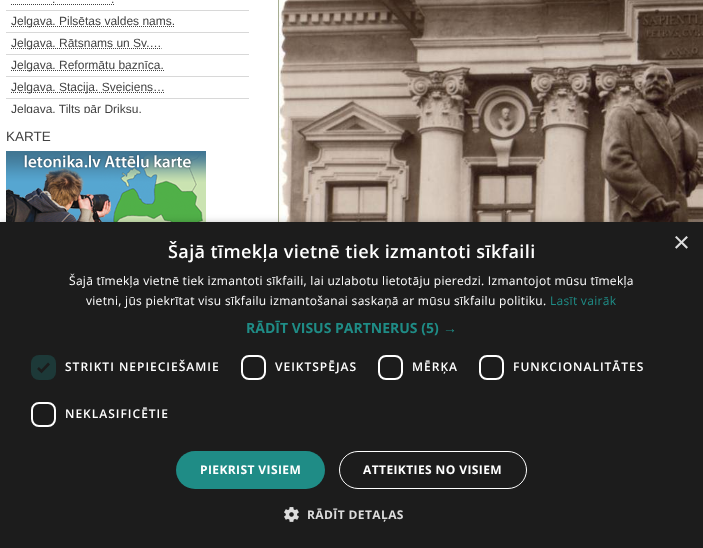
async function draw(canvas) {
	canvas.width = 703;
	canvas.height = 548;
	const c = canvas.getContext('2d');
	c.miterLimit = 4;
	c.fontKerning = 'normal';
	async function loadImage(src) {
		const img = new Image();
		img.src = src;
		await img.decode();
		return img;
	}

	c.fillStyle = '#fff';
	c.fillRect(0, 0, 703, 548);
	c.font = '12px Liberation Sans';
	c.fillStyle = '#424242';
	c.fillText('.', 52, 3);
	c.beginPath();
	c.moveTo(11, 4.5);
	c.lineTo(114.5, 4.5);
	c.strokeStyle = '#424242';
	c.setLineDash([1, 1]);
	c.stroke();
	c.fillText('.', 111, 3);
	c.fillStyle = '#d8d8d8';
	c.fillRect(6, 10, 243, 1);
	c.beginPath();
	c.moveTo(11, 26.5);
	c.lineTo(175, 26.5);
	c.stroke();
	c.fillStyle = '#424242';
	c.fillText('Jelgava. Pilsētas valdes nams.', 11, 25);
	c.fillStyle = '#d8d8d8';
	c.fillRect(6, 32, 243, 1);
	c.beginPath();
	c.moveTo(11, 48.5);
	c.lineTo(161.5, 48.5);
	c.stroke();
	c.fillStyle = '#424242';
	c.fillText('Jelgava. Rātsnams un Sv.…', 11, 47);
	c.fillStyle = '#d8d8d8';
	c.fillRect(6, 54, 243, 1);
	c.beginPath();
	c.moveTo(11, 70.5);
	c.lineTo(164, 70.5);
	c.stroke();
	c.fillStyle = '#424242';
	c.fillText('Jelgava. Reformātu baznīca.', 11, 69);
	c.fillStyle = '#d8d8d8';
	c.fillRect(6, 76, 243, 1);
	c.beginPath();
	c.moveTo(11, 92.5);
	c.lineTo(165, 92.5);
	c.stroke();
	c.fillStyle = '#424242';
	c.fillText('Jelgava. Stacija. Sveiciens…', 11, 91);
	c.fillStyle = '#d8d8d8';
	c.fillRect(6, 98, 243, 1);
	c.save();
	c.beginPath();
	c.rect(6, 99, 243, 14);
	c.clip();
	c.fillStyle = '#424242';
	c.fillText('Jelgava. Tilts pār Driksu.', 11, 113);
	c.restore();
	c.font = '13.5px Liberation Sans';
	c.fillStyle = '#424242';
	c.fillText('KARTE', 6, 141);
	c.drawImage(await loadImage('img1.png'), 6, 151, 200, 71);
	c.strokeStyle = '#a8ae93';
	c.setLineDash([]);
	c.strokeRect(278.5, -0.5, 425, 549);
	c.drawImage(await loadImage('img2.png'), 279, 0, 424, 222);
	c.fillStyle = '#00000059';
	c.filter = 'blur(4px)';
	c.beginPath();
	c.rect(1, 224, 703, 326);
	c.fill();
	c.filter = 'none';
	c.fillStyle = '#1c1c1c';
	c.fillRect(0, 222, 703, 326);
	c.letterSpacing = '0.4px';
	c.font = '600 18px Open Sans';
	c.fillStyle = '#fff';
	c.fillText('Šajā tīmekļa vietnē tiek izmantoti sīkfaili', 168, 258);
	c.letterSpacing = '0px';
	c.font = '29px Liberation Sans';
	c.fillStyle = '#ddd';
	c.fillText('×', 673, 252);
	c.letterSpacing = '0.3px';
	c.font = '12px Open Sans';
	c.fillStyle = '#fff';
	c.fillText('Šajā tīmekļa vietnē tiek izmantoti sīkfaili, lai uzlabotu lietotāju pieredzi. Izmantojot mūsu tīmekļa', 69, 285);
	c.fillText('vietni, jūs piekrītat visu sīkfailu izmantošanai saskaņā ar mūsu sīkfailu politiku.', 86, 305);
	c.fillStyle = '#1f8c86';
	c.fillText('Lasīt vairāk', 550, 305);
	c.letterSpacing = '0px';
	c.font = 'bold 14px Open Sans';
	c.fillText('RĀDĪT VISUS PARTNERUS (5)', 246, 333);
	c.font = 'bold 14px Liberation Sans';
	c.fillText('→', 443, 333);
	c.fillStyle = '#1d3938';
	c.beginPath();
	c.roundRect(31, 355, 25, 25, 8);
	c.fill();
	c.beginPath();
	c.moveTo(38, 368);
	c.lineTo(41.5, 371.5);
	c.lineTo(49, 363.5);
	c.strokeStyle = '#1c1c1c';
	c.lineWidth = 2.6;
	c.stroke();
	c.letterSpacing = '1px';
	c.font = '600 12px Open Sans';
	c.fillStyle = '#fff';
	c.fillText('STRIKTI NEPIECIEŠAMIE', 65, 371);
	c.beginPath();
	c.roundRect(242, 356, 23, 23, 7);
	c.strokeStyle = '#fff';
	c.lineWidth = 2;
	c.stroke();
	c.fillText('VEIKTSPĒJAS', 275, 371);
	c.beginPath();
	c.roundRect(379, 356, 23, 23, 7);
	c.stroke();
	c.fillText('MĒRĶA', 412, 371);
	c.beginPath();
	c.roundRect(480, 356, 23, 23, 7);
	c.stroke();
	c.fillText('FUNKCIONALITĀTES', 513, 371);
	c.beginPath();
	c.roundRect(32, 403, 23, 23, 7);
	c.stroke();
	c.fillText('NEKLASIFICĒTIE', 65, 418);
	c.fillStyle = '#1f8c86';
	c.beginPath();
	c.roundRect(176, 451, 149, 38, 19);
	c.fill();
	c.letterSpacing = '0.4px';
	c.font = 'bold 12px Open Sans';
	c.fillStyle = '#fff';
	c.fillText('PIEKRIST VISIEM', 200, 474);
	c.beginPath();
	c.roundRect(339.5, 451.5, 187, 37, 18.5);
	c.lineWidth = 1;
	c.stroke();
	c.fillText('ATTEIKTIES NO VISIEM', 363, 474);
	c.drawImage(await loadImage('img3.png'), 284, 507, 15, 15);
	c.fillStyle = '#ddd';
	c.fillText('RĀDĪT DETAĻAS', 307, 519);
}

draw(document.querySelector('canvas'));
